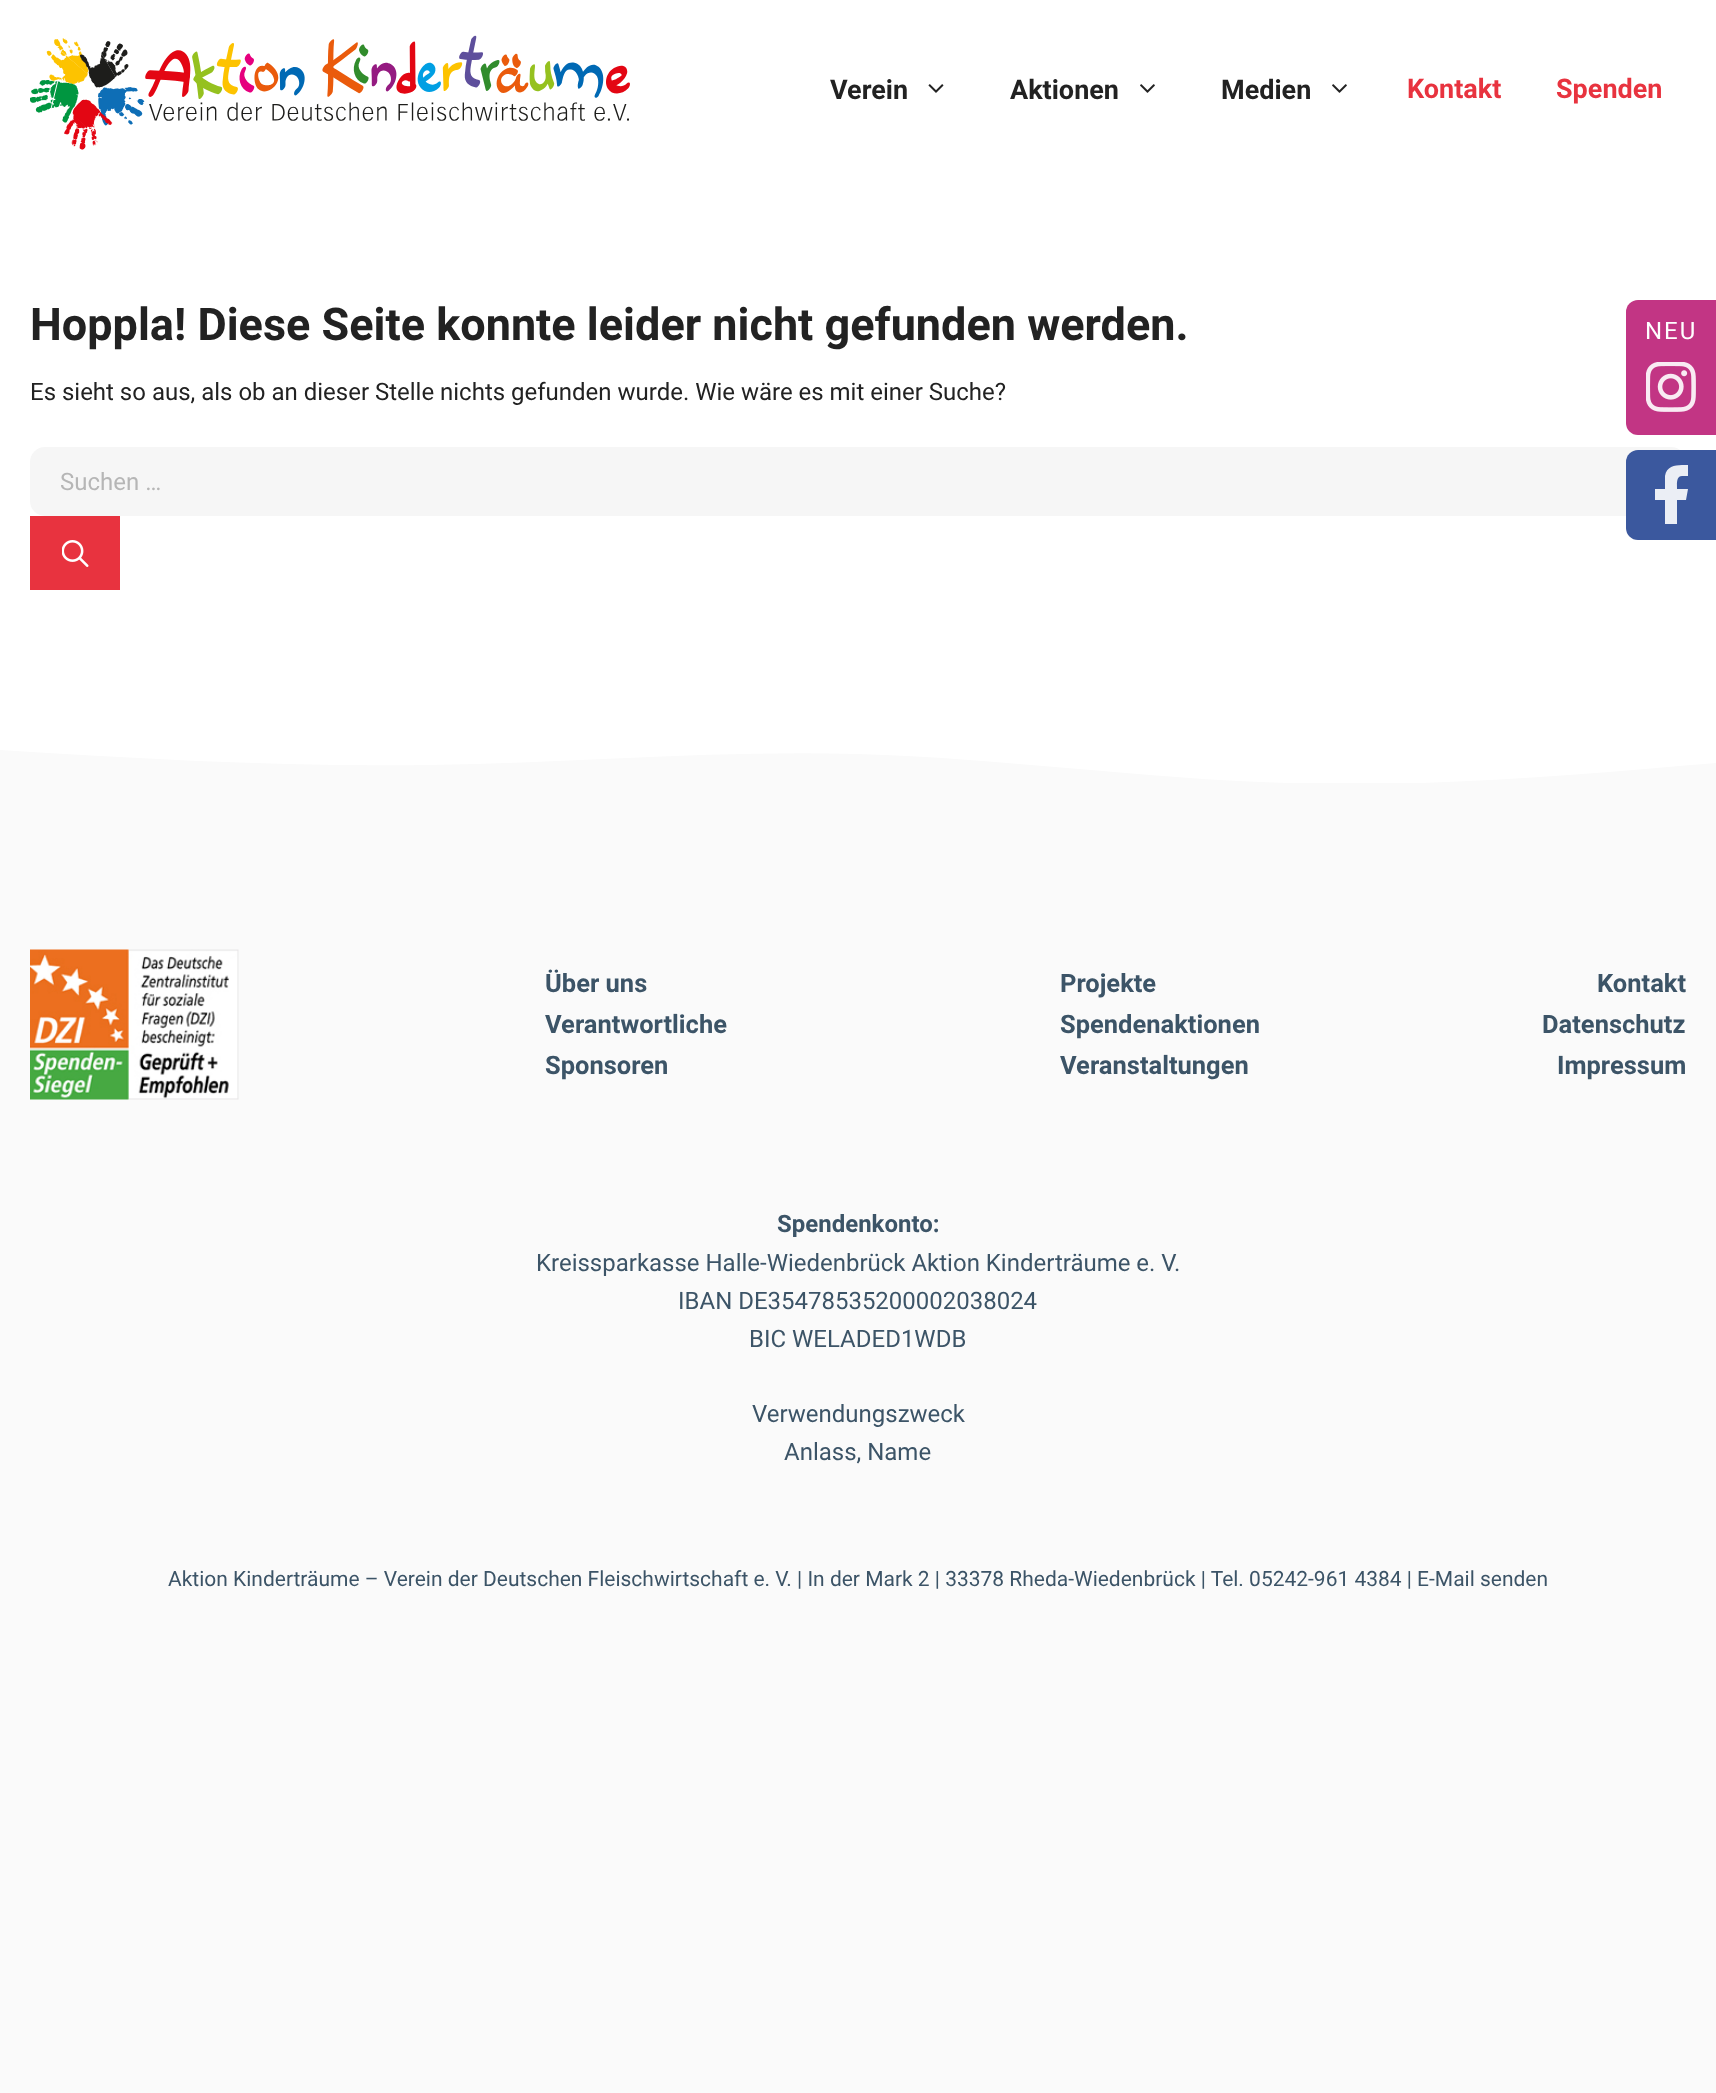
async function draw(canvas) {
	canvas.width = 1716;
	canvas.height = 2093;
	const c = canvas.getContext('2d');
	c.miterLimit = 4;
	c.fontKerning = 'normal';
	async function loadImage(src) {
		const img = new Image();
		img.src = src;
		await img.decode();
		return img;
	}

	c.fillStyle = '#fafafa';
	c.fillRect(0, 0, 1716, 2093);
	c.fillStyle = '#fff';
	c.fillRect(0, 0, 1716, 739);
	c.drawImage(await loadImage('img1.png'), 30, 35, 600, 115);
	c.font = 'bold 27px Roboto';
	c.fillStyle = '#222';
	c.fillText('Verein', 830, 99);
	c.drawImage(await loadImage('img2.png'), 928, 84, 16, 9);
	c.fillText('Aktionen', 1010, 99);
	c.drawImage(await loadImage('img3.png'), 1140, 84, 15, 9);
	c.fillText('Medien', 1221, 99);
	c.drawImage(await loadImage('img3.png'), 1332, 84, 15, 9);
	c.fillStyle = '#e8333f';
	c.fillText('Kontakt', 1407, 98);
	c.fillText('Spenden', 1556, 98);
	c.font = 'bold 45px Roboto';
	c.fillStyle = '#222';
	c.fillText('Hoppla! Diese Seite konnte leider nicht gefunden werden.', 30, 340);
	c.font = '24px Roboto';
	c.fillText('Es sieht so aus, als ob an dieser Stelle nichts gefunden wurde. Wie wäre es mit einer Suche?', 30, 400);
	c.fillStyle = '#f6f6f6';
	c.beginPath();
	c.roundRect(30, 447, 1656, 69, 15);
	c.fill();
	c.fillStyle = '#b6b6b6';
	c.fillText('Suchen …', 60, 490);
	c.fillStyle = '#e8333f';
	c.fillRect(30, 516, 90, 74);
	c.drawImage(await loadImage('img4.png'), 62, 540, 27, 27);
	c.fillStyle = '#c23584';
	c.beginPath();
	c.roundRect(1626, 300, 90, 135, [12, 0, 0, 12]);
	c.fill();
	c.letterSpacing = '2px';
	c.fillStyle = '#fff';
	c.fillText('NEU', 1645, 339);
	c.drawImage(await loadImage('img5.png'), 1646, 362, 50, 50);
	c.fillStyle = '#3b589e';
	c.beginPath();
	c.roundRect(1626, 450, 90, 90, [12, 0, 0, 12]);
	c.fill();
	c.save();
	c.beginPath();
	c.rect(1655, 465, 33, 59);
	c.clip();
	c.fillStyle = '#ebeef5';
	c.beginPath();
	c.moveTo(1682, 476);
	c.lineTo(1688, 476);
	c.lineTo(1688, 465);
	c.bezierCurveTo(1679, 465, 1667, 464, 1665, 476);
	c.lineTo(1665, 489);
	c.lineTo(1654, 489);
	c.lineTo(1654, 500);
	c.lineTo(1665, 500);
	c.lineTo(1665, 524);
	c.lineTo(1677, 524);
	c.lineTo(1677, 500);
	c.lineTo(1686, 500);
	c.lineTo(1688, 489);
	c.lineTo(1677, 489);
	c.bezierCurveTo(1677, 484, 1676, 476, 1682, 476);
	c.closePath();
	c.fill();
	c.restore();
	c.save();
	c.beginPath();
	c.rect(0, 738, 1716, 45);
	c.clip();
	c.fillStyle = '#fff';
	c.beginPath();
	c.moveTo(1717, 739);
	c.lineTo(-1, 739);
	c.lineTo(-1, 750);
	c.bezierCurveTo(142, 759, 285, 767, 429, 765);
	c.bezierCurveTo(572, 763, 715, 750, 858, 754);
	c.bezierCurveTo(1002, 758, 1144, 779, 1287, 783);
	c.bezierCurveTo(1431, 788, 1574, 775, 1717, 763);
	c.closePath();
	c.fill();
	c.restore();
	c.drawImage(await loadImage('img6.png'), 30, 949, 209, 151);
	c.letterSpacing = '0px';
	c.font = 'bold 25.5px Roboto';
	c.fillStyle = '#3c5467';
	for (const [text, x, y] of [
		['Über uns', 545, 992],
		['Verantwortliche', 545, 1033],
		['Sponsoren', 545, 1074],
		['Projekte', 1060, 992],
		['Spendenaktionen', 1060, 1033],
		['Veranstaltungen', 1060, 1074],
		['Kontakt', 1597, 992],
		['Datenschutz', 1542, 1033],
		['Impressum', 1557, 1074],
	]) {
		c.fillText(text, x, y);
	}
	c.font = 'bold 24px Roboto';
	c.fillText('Spendenkonto:', 777, 1232);
	c.font = '24px Roboto';
	for (const [text, x, y] of [
		['Kreissparkasse Halle-Wiedenbrück Aktion Kinderträume e. V.', 536, 1271],
		['IBAN DE35478535200002038024', 678, 1309],
		['BIC WELADED1WDB', 749, 1347],
		['Verwendungszweck', 752, 1422],
		['Anlass, Name', 784, 1460],
	]) {
		c.fillText(text, x, y);
	}
	c.font = '21px Roboto';
	c.fillText('Aktion Kinderträume – Verein der Deutschen Fleischwirtschaft e. V. | In der Mark 2 | 33378 Rheda-Wiedenbrück | Tel. 05242-961 4384 | E-Mail senden', 168, 1586);
}

draw(document.querySelector('canvas'));
